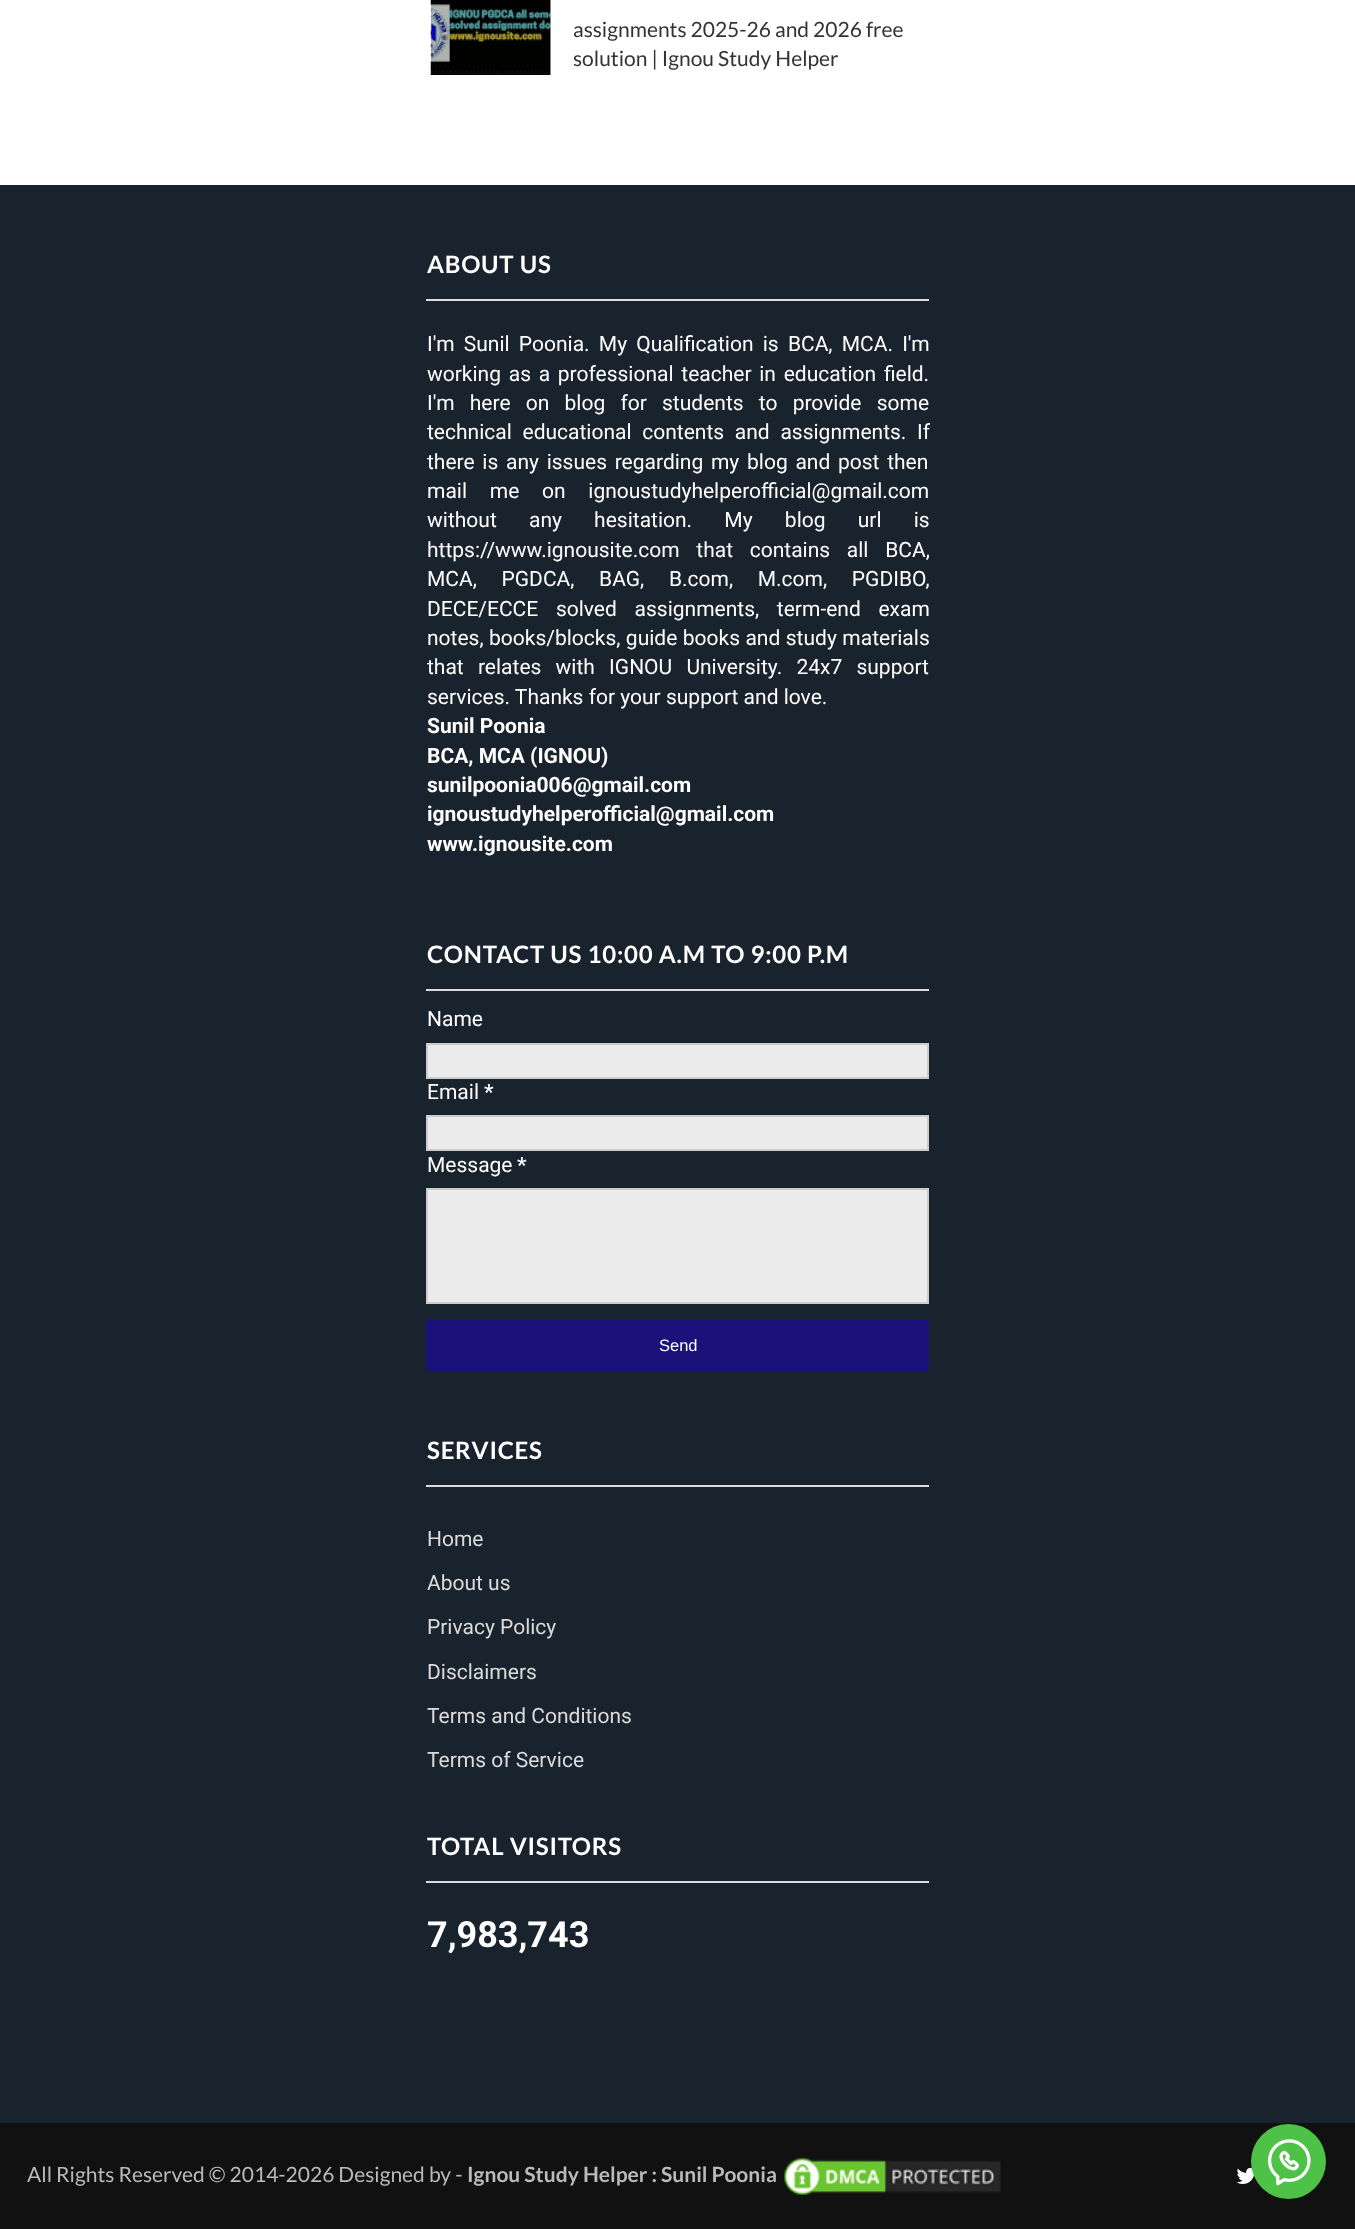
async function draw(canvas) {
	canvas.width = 1355;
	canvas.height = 2229;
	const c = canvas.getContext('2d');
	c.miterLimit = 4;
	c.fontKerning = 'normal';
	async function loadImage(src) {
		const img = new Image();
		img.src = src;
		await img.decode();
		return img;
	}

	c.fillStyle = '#fff';
	c.fillRect(0, 0, 1355, 2229);
	c.drawImage(await loadImage('img1.png'), 430, 0, 121, 75);
	c.fillStyle = '#0000004d';
	c.fillRect(431, 0, 120, 75);
	c.font = '21px Lato';
	c.fillStyle = '#333';
	c.fillText('assignments 2025-26 and 2026 free', 573, 37);
	c.fillText('solution | Ignou Study Helper', 573, 66);
	c.fillStyle = '#19232d';
	c.fillRect(0, 185, 1355, 1938);
	c.fillStyle = '#ddd';
	c.fillRect(426, 299, 503, 2);
	c.letterSpacing = '0.75px';
	c.font = 'bold 24px Lato';
	c.fillStyle = '#fff';
	c.fillText('ABOUT US', 427, 273);
	c.letterSpacing = '0px';
	c.wordSpacing = '4px';
	c.font = '21px Roboto';
	c.fillText('I\'m Sunil Poonia. My Qualification is BCA, MCA. I\'m', 427, 351);
	c.wordSpacing = '2.5px';
	c.fillText('working as a professional teacher in education field.', 427, 381);
	c.wordSpacing = '10px';
	c.fillText('I\'m here on blog for students to provide some', 427, 410);
	c.wordSpacing = '5.5px';
	c.fillText('technical educational contents and assignments. If', 427, 439);
	c.wordSpacing = '2.5px';
	c.fillText('there is any issues regarding my blog and post then', 427, 469);
	c.wordSpacing = '17.5px';
	c.fillText('mail me on ignoustudyhelperofficial@gmail.com', 427, 498);
	c.wordSpacing = '27px';
	c.fillText('without any hesitation. My blog url is', 427, 527);
	c.wordSpacing = '11.5px';
	c.fillText('https://www.ignousite.com that contains all BCA,', 427, 557);
	c.wordSpacing = '19.5px';
	c.fillText('MCA, PGDCA, BAG, B.com, M.com, PGDIBO,', 427, 586);
	c.wordSpacing = '12.5px';
	c.fillText('DECE/ECCE solved assignments, term-end exam', 427, 616);
	c.wordSpacing = '0.25px';
	c.fillText('notes, books/blocks, guide books and study materials', 427, 645);
	c.wordSpacing = '9px';
	c.fillText('that relates with IGNOU University. 24x7 support', 427, 674);
	c.wordSpacing = '0px';
	c.fillText('services. Thanks for your support and love.', 427, 704);
	c.font = 'bold 21px Roboto';
	for (const [text, x, y] of [
		['Sunil Poonia', 427, 733],
		['BCA, MCA (IGNOU)', 427, 763],
		['sunilpoonia006@gmail.com', 427, 792],
		['ignoustudyhelperofficial@gmail.com', 427, 821],
		['www.ignousite.com', 427, 851],
	]) {
		c.fillText(text, x, y);
	}
	c.fillStyle = '#ddd';
	c.fillRect(426, 989, 503, 2);
	c.letterSpacing = '0.75px';
	c.font = 'bold 24px Lato';
	c.fillStyle = '#fff';
	c.fillText('CONTACT US 10:00 A.M TO 9:00 P.M', 427, 963);
	c.letterSpacing = '0px';
	c.font = '21px Roboto';
	c.fillText('Name', 427, 1026);
	c.fillStyle = '#ebebeb';
	c.beginPath();
	c.rect(427, 1044, 501, 34);
	c.fill();
	c.strokeStyle = '#ccc';
	c.lineWidth = 2;
	c.stroke();
	c.fillStyle = '#fff';
	c.fillText('Email', 427, 1099);
	c.font = 'bold 21px Roboto';
	c.fillText('*', 484, 1099);
	c.fillStyle = '#ebebeb';
	c.beginPath();
	c.rect(427, 1116, 501, 34);
	c.fill();
	c.stroke();
	c.font = '21px Roboto';
	c.fillStyle = '#fff';
	c.fillText('Message', 427, 1172);
	c.font = 'bold 21px Roboto';
	c.fillText('*', 517, 1172);
	c.fillStyle = '#ebebeb';
	c.beginPath();
	c.rect(427, 1189, 501, 114);
	c.fill();
	c.stroke();
	c.fillStyle = '#1a117b';
	c.beginPath();
	c.roundRect(426, 1319, 503, 52, 3);
	c.fill();
	c.font = '16.5px Liberation Sans';
	c.fillStyle = '#fff';
	c.fillText('Send', 659, 1351);
	c.fillStyle = '#ddd';
	c.fillRect(426, 1485, 503, 2);
	c.letterSpacing = '0.75px';
	c.font = 'bold 24px Lato';
	c.fillStyle = '#fff';
	c.fillText('SERVICES', 427, 1459);
	c.letterSpacing = '0px';
	c.font = '21px Roboto';
	c.fillStyle = '#dbdbdb';
	for (const [text, x, y] of [
		['Home', 427, 1546],
		['About us', 427, 1590],
		['Privacy Policy', 427, 1634],
		['Disclaimers', 427, 1679],
		['Terms and Conditions', 427, 1723],
		['Terms of Service', 427, 1767],
	]) {
		c.fillText(text, x, y);
	}
	c.fillStyle = '#ddd';
	c.fillRect(426, 1881, 503, 2);
	c.letterSpacing = '0.75px';
	c.font = 'bold 24px Lato';
	c.fillStyle = '#fff';
	c.fillText('TOTAL VISITORS', 427, 1855);
	c.letterSpacing = '0px';
	c.font = 'bold 36px Roboto';
	c.fillText('7,983,743', 427, 1947);
	c.fillStyle = '#111';
	c.fillRect(0, 2123, 1355, 106);
	c.font = '21px Lato';
	c.fillStyle = '#bababa';
	c.fillText('All Rights Reserved © 2014-2026 Designed by -', 27, 2182);
	c.font = 'bold 21px Lato';
	c.fillText('Ignou Study Helper : Sunil Poonia', 467, 2182);
	c.drawImage(await loadImage('img2.png'), 784, 2158, 217, 37);
	c.drawImage(await loadImage('img3.png'), 1236, 2167, 18, 17);
	c.fillStyle = '#4dc247';
	c.beginPath();
	c.arc(1288.5, 2161.5, 37.5, 0, 2 * Math.PI);
	c.fill();
	c.drawImage(await loadImage('img4.png'), 1267, 2139, 44, 47);
}

draw(document.querySelector('canvas'));
